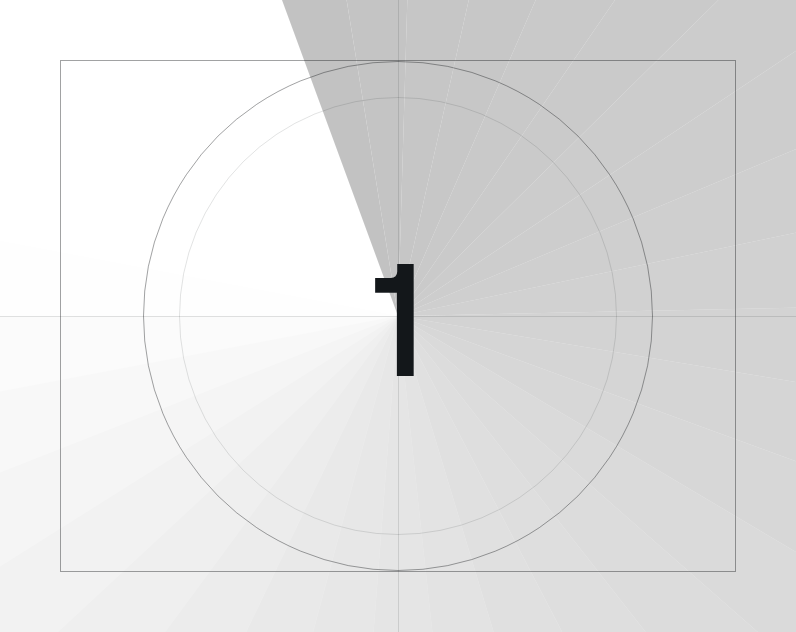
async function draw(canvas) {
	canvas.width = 796;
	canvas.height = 632;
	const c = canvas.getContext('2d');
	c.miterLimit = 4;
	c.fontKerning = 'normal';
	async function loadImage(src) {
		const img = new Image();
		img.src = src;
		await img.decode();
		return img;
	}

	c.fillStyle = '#fff';
	c.fillRect(0, 0, 796, 632);
	c.drawImage(await loadImage('img1.png'), 0, 0, 796, 632);
	c.fillStyle = '#13171a1f';
	c.fillRect(0, 316, 796, 1);
	c.fillRect(398, 0, 1, 632);
	c.strokeStyle = '#13171a66';
	c.strokeRect(60.5, 60.5, 675, 511);
	c.beginPath();
	c.arc(398, 316, 254.5, 0, 2 * Math.PI);
	c.stroke();
	c.beginPath();
	c.arc(398, 316, 218.5, 0, 2 * Math.PI);
	c.strokeStyle = '#13171a1f';
	c.stroke();
	c.font = '500 160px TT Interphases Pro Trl';
	c.fillStyle = '#13171a';
	c.fillText('1', 370, 376);
}

draw(document.querySelector('canvas'));
